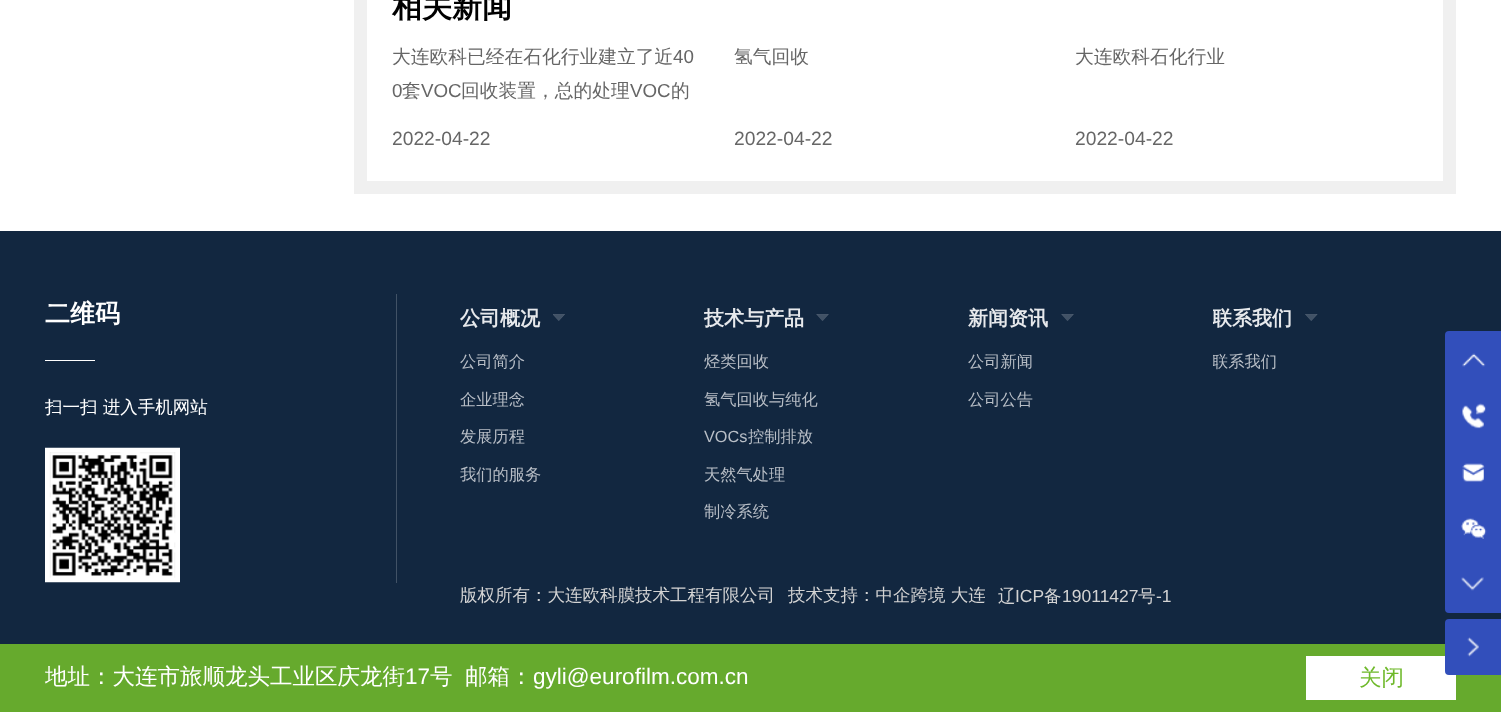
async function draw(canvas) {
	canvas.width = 1501;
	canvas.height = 712;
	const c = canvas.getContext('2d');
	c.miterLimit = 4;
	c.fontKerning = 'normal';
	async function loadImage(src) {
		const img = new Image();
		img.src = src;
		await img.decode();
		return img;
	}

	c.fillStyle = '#fff';
	c.fillRect(0, 0, 1501, 712);
	c.strokeStyle = '#f0f0f0';
	c.lineWidth = 13;
	c.strokeRect(360.5, -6.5, 1089, 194);
	c.font = 'bold 30px WenQuanYi Zen Hei';
	c.fillStyle = '#000';
	c.fillText('相关新闻', 392, 17);
	c.font = '500 18.75px WenQuanYi Zen Hei';
	c.fillStyle = '#666';
	c.fillText('大连欧科已经在石化行业建立了近', 392, 63);
	c.font = '18.75px Liberation Sans';
	c.fillText('40', 673, 63);
	c.fillText('0', 392, 97);
	c.font = '500 18.75px WenQuanYi Zen Hei';
	c.fillText('套', 402, 97);
	c.font = '18.75px Liberation Sans';
	c.fillText('VOC', 421, 97);
	c.font = '500 18.75px WenQuanYi Zen Hei';
	c.fillText('回收装置，总的处理', 461, 97);
	c.font = '18.75px Liberation Sans';
	c.fillText('VOC', 630, 97);
	c.font = '500 18.75px WenQuanYi Zen Hei';
	c.fillText('的', 671, 97);
	c.font = '19.25px Liberation Sans';
	c.fillText('2022-04-22', 392, 145);
	c.font = '500 18.75px WenQuanYi Zen Hei';
	c.fillText('氢气回收', 734, 63);
	c.font = '19.25px Liberation Sans';
	c.fillText('2022-04-22', 734, 145);
	c.font = '500 18.75px WenQuanYi Zen Hei';
	c.fillText('大连欧科石化行业', 1075, 63);
	c.font = '19.25px Liberation Sans';
	c.fillText('2022-04-22', 1075, 145);
	c.fillStyle = '#122740';
	c.fillRect(0, 231, 1501, 413);
	c.fillStyle = '#415266';
	c.fillRect(396, 294, 1, 289);
	c.font = 'bold 25px WenQuanYi Zen Hei';
	c.fillStyle = '#fff';
	c.fillText('二维码', 45, 322);
	c.fillRect(45, 360, 50, 1);
	c.font = '500 17.5px WenQuanYi Zen Hei';
	c.fillText('扫一扫 进入手机网站', 45, 413);
	c.drawImage(await loadImage('img1.png'), 45, 447, 135, 136);
	c.font = 'bold 20px WenQuanYi Zen Hei';
	c.fillStyle = '#e7e9ec';
	c.fillText('公司概况', 460, 325);
	c.drawImage(await loadImage('img2.png'), 553, 314, 12, 7);
	c.font = '500 16.25px WenQuanYi Zen Hei';
	c.fillStyle = '#b8bec6';
	for (const [text, x, y] of [
		['公司简介', 460, 367],
		['企业理念', 460, 405],
		['发展历程', 460, 442],
		['我们的服务', 460, 480],
	]) {
		c.fillText(text, x, y);
	}
	c.font = 'bold 20px WenQuanYi Zen Hei';
	c.fillStyle = '#e7e9ec';
	c.fillText('技术与产品', 704, 325);
	c.drawImage(await loadImage('img3.png'), 816, 314, 13, 7);
	c.font = '500 16.25px WenQuanYi Zen Hei';
	c.fillStyle = '#b8bec6';
	c.fillText('烃类回收', 704, 367);
	c.fillText('氢气回收与纯化', 704, 405);
	c.font = '16.25px Liberation Sans';
	c.fillText('VOCs', 704, 442);
	c.font = '500 16.25px WenQuanYi Zen Hei';
	for (const [text, x, y] of [
		['控制排放', 748, 442],
		['天然气处理', 704, 480],
		['制冷系统', 704, 517],
	]) {
		c.fillText(text, x, y);
	}
	c.font = 'bold 20px WenQuanYi Zen Hei';
	c.fillStyle = '#e7e9ec';
	c.fillText('新闻资讯', 968, 325);
	c.drawImage(await loadImage('img3.png'), 1061, 314, 13, 7);
	c.font = '500 16.25px WenQuanYi Zen Hei';
	c.fillStyle = '#b8bec6';
	c.fillText('公司新闻', 968, 367);
	c.fillText('公司公告', 968, 405);
	c.save();
	c.beginPath();
	c.rect(1213, 294, 225, 50);
	c.clip();
	c.font = 'bold 20px WenQuanYi Zen Hei';
	c.fillStyle = '#e7e9ec';
	c.fillText('联系我们', 1212, 325);
	c.restore();
	c.drawImage(await loadImage('img4.png'), 1305, 314, 13, 7);
	c.save();
	c.beginPath();
	c.rect(1213, 344, 225, 37);
	c.clip();
	c.fillText('联系我们', 1212, 367);
	c.restore();
	c.font = '500 17.5px WenQuanYi Zen Hei';
	c.fillStyle = '#d3d3d3';
	for (const [text, x, y] of [
		['版权所有：大连欧科膜技术工程有限公司', 460, 601],
		['技术支持：中企跨境 大连', 788, 601],
		['辽', 998, 602],
	]) {
		c.fillText(text, x, y);
	}
	c.font = '17.5px Liberation Sans';
	c.fillText('ICP', 1015, 602);
	c.font = '500 17.5px WenQuanYi Zen Hei';
	c.fillText('备', 1044, 602);
	c.font = '17.5px Liberation Sans';
	c.fillText('19011427', 1062, 602);
	c.font = '500 17.5px WenQuanYi Zen Hei';
	c.fillText('号', 1138, 602);
	c.font = '17.5px Liberation Sans';
	c.fillText('-1', 1156, 602);
	c.fillStyle = '#324fbb';
	c.beginPath();
	c.roundRect(1445, 331, 56, 282, [4, 0, 0, 4]);
	c.fill();
	c.drawImage(await loadImage('img5.png'), 1462, 353, 24, 14);
	c.drawImage(await loadImage('img6.png'), 1462, 403, 24, 26);
	c.drawImage(await loadImage('img7.png'), 1462, 463, 23, 19);
	c.drawImage(await loadImage('img8.png'), 1461, 518, 26, 21);
	c.drawImage(await loadImage('img9.png'), 1461, 577, 23, 14);
	c.fillStyle = '#66aa2d';
	c.fillRect(0, 644, 1501, 68);
	c.fillStyle = '#fff';
	c.fillRect(1306, 656, 150, 44);
	c.fillStyle = '#324fbb';
	c.beginPath();
	c.roundRect(1445, 619, 56, 56, [4, 0, 0, 4]);
	c.fill();
	c.drawImage(await loadImage('img10.png'), 1467, 637, 12, 20);
	c.font = '500 22.5px WenQuanYi Zen Hei';
	c.fillStyle = '#fff';
	c.fillText('地址：大连市旅顺龙头工业区庆龙街', 45, 684);
	c.font = '22.5px Liberation Sans';
	c.fillText('17', 405, 684);
	c.font = '500 22.5px WenQuanYi Zen Hei';
	c.fillText('号', 430, 684);
	c.fillText('邮箱：', 465, 684);
	c.font = '22.5px Liberation Sans';
	c.fillText('gyli@eurofilm.com.cn', 533, 684);
	c.font = '500 22.5px WenQuanYi Zen Hei';
	c.fillStyle = '#6fb92b';
	c.fillText('关闭', 1359, 685);
}

draw(document.querySelector('canvas'));
